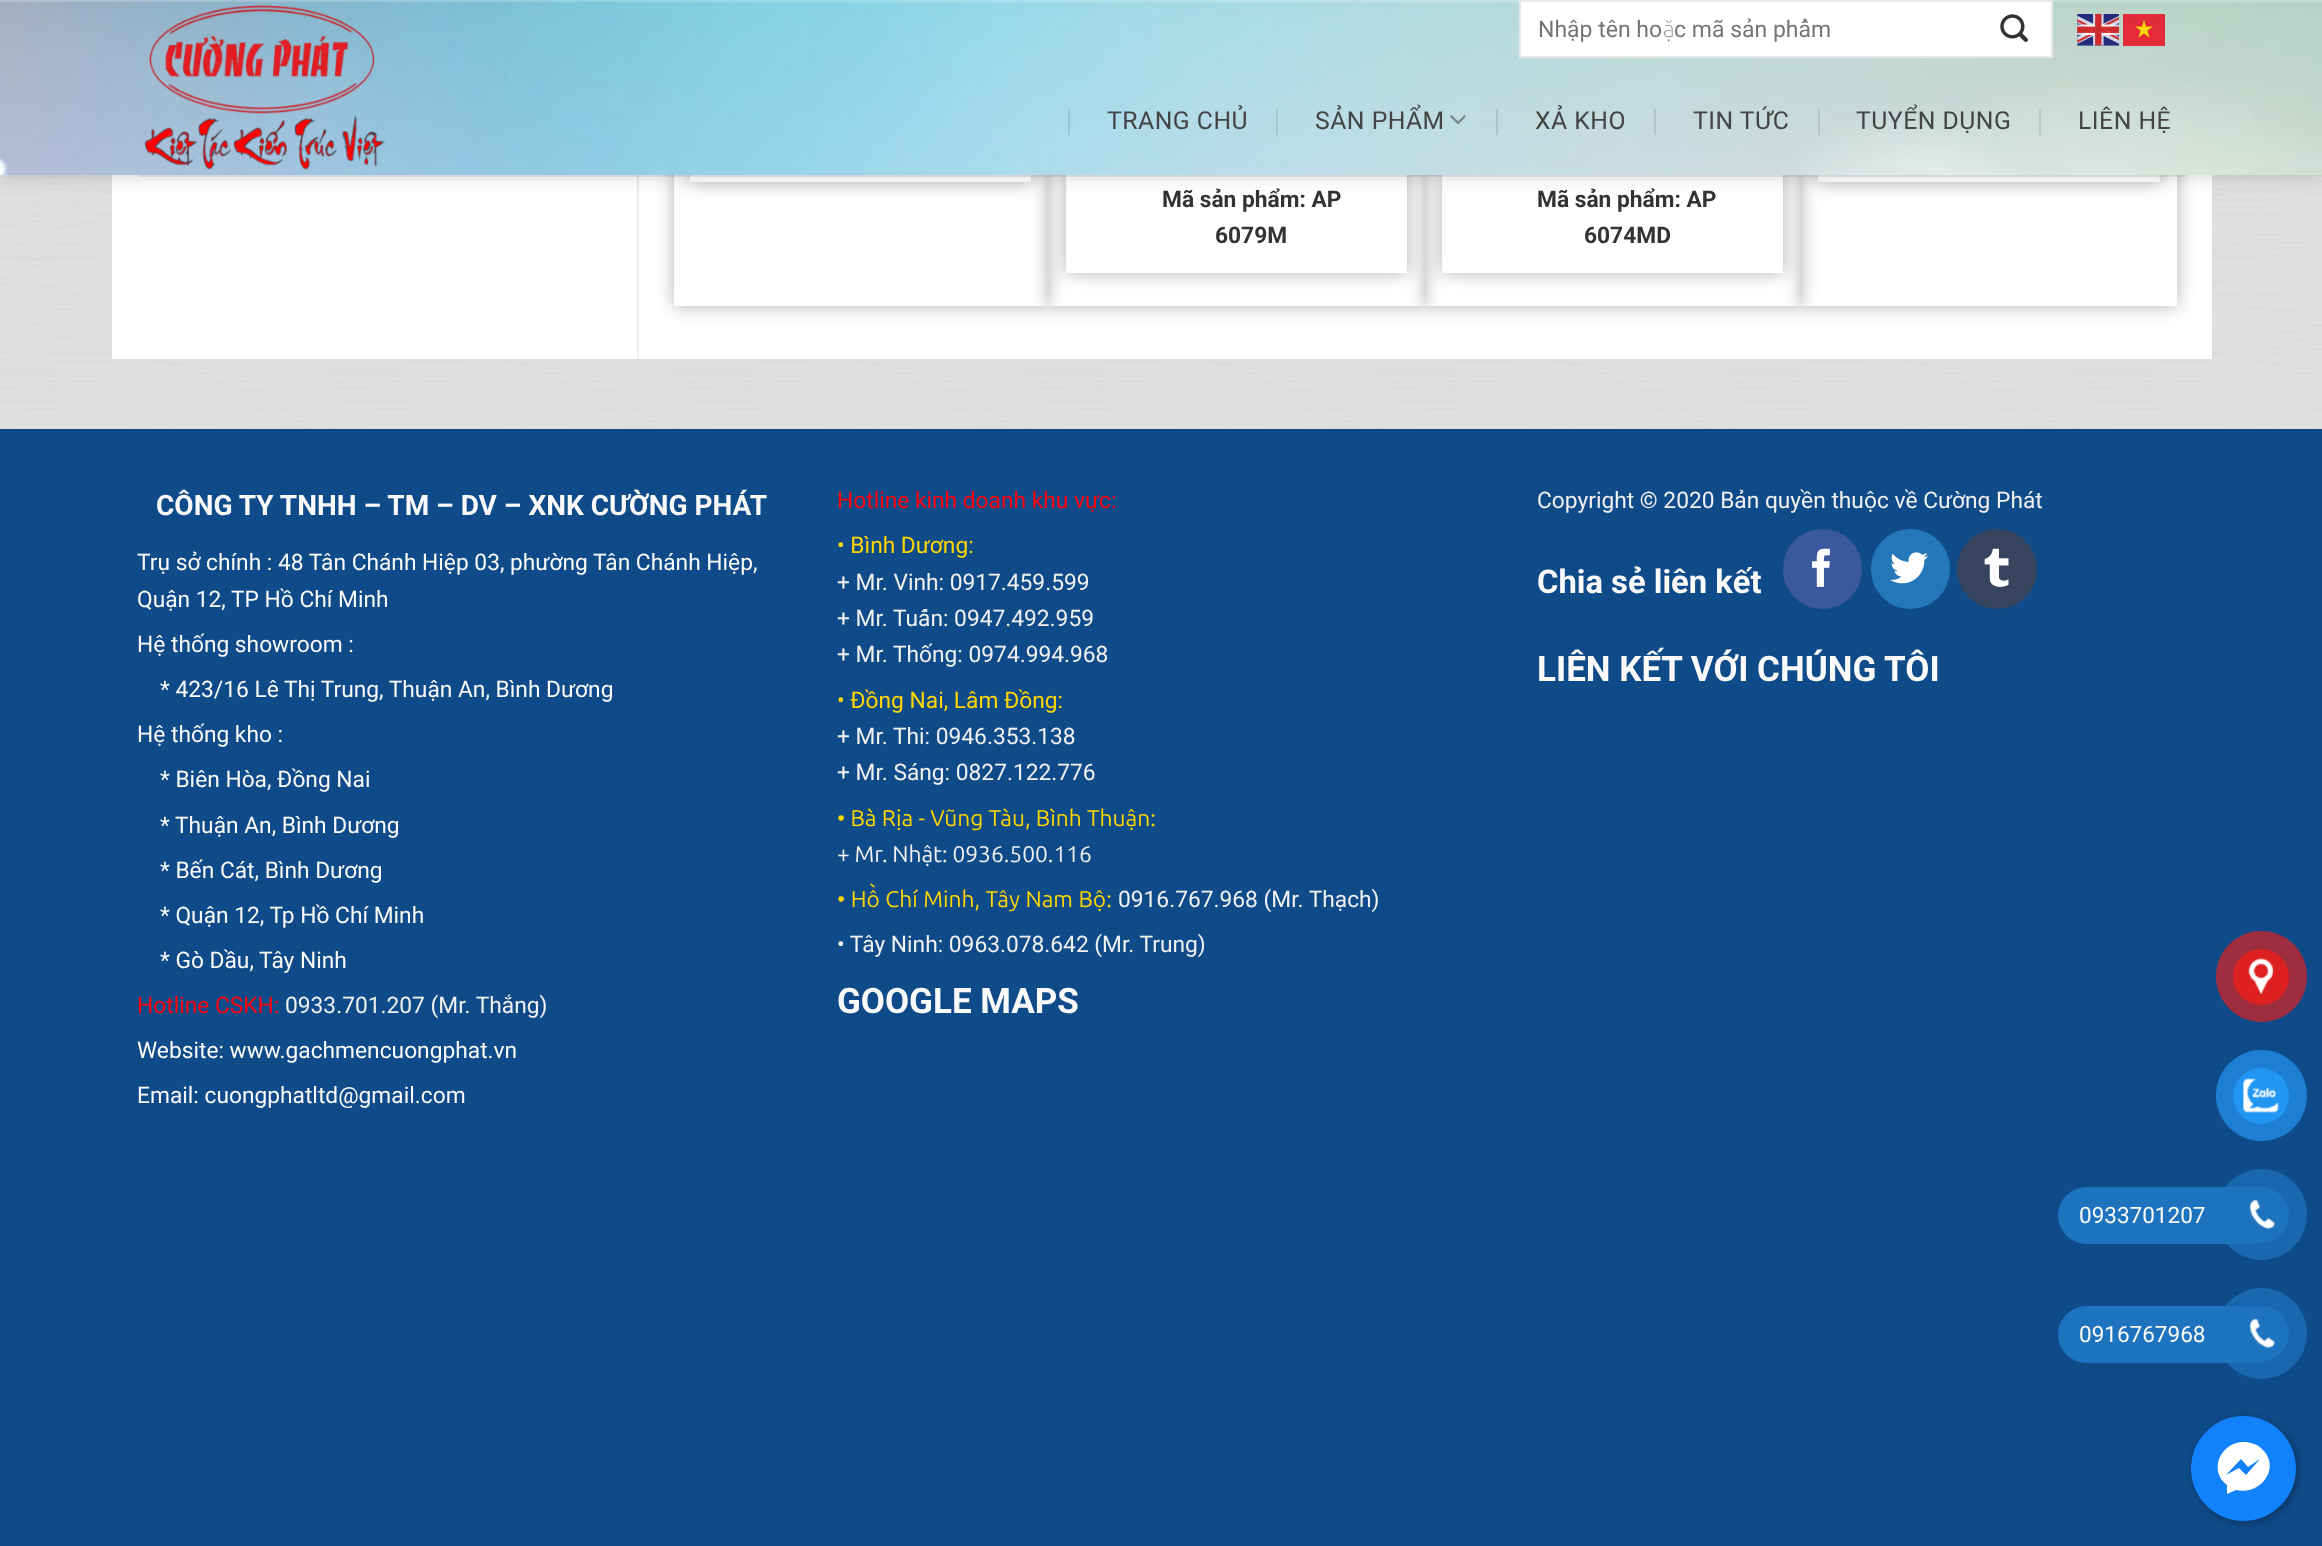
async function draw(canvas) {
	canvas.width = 2322;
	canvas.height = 1546;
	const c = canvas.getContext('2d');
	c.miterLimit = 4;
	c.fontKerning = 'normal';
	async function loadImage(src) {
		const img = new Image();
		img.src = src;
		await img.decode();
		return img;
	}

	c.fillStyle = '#fff';
	c.fillRect(0, 0, 2322, 1546);
	c.drawImage(await loadImage('img1.png'), 0, 175, 2322, 254);
	c.drawImage(await loadImage('img7.png'), 0, 175, 2310, 249);
	c.fillRect(112, 175, 2100, 184);
	c.fillStyle = '#ececec';
	c.fillRect(637, 175, 2, 184);
	c.fillStyle = '#00000026';
	c.filter = 'blur(9px)';
	c.beginPath();
	c.rect(2, 2, 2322, 175);
	c.fill();
	c.filter = 'none';
	c.save();
	c.beginPath();
	c.moveTo(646, 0);
	c.lineTo(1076, 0);
	c.lineTo(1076, 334);
	c.lineTo(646, 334);
	c.closePath();
	c.moveTo(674, -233);
	c.lineTo(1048, -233);
	c.lineTo(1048, 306);
	c.lineTo(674, 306);
	c.closePath();
	c.clip('evenodd');
	c.fillStyle = '#0000004d';
	c.filter = 'blur(9px)';
	c.beginPath();
	c.rect(674, -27, 374, 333);
	c.fill();
	c.filter = 'none';
	c.restore();
	c.save();
	c.beginPath();
	c.moveTo(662, 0);
	c.lineTo(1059, 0);
	c.lineTo(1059, 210);
	c.lineTo(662, 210);
	c.closePath();
	c.moveTo(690, -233);
	c.lineTo(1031, -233);
	c.lineTo(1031, 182);
	c.lineTo(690, 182);
	c.closePath();
	c.clip('evenodd');
	c.fillStyle = '#0000004d';
	c.filter = 'blur(9px)';
	c.beginPath();
	c.rect(690, -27, 341, 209);
	c.fill();
	c.filter = 'none';
	c.restore();
	c.save();
	c.beginPath();
	c.moveTo(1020, 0);
	c.lineTo(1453, 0);
	c.lineTo(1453, 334);
	c.lineTo(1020, 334);
	c.closePath();
	c.moveTo(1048, -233);
	c.lineTo(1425, -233);
	c.lineTo(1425, 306);
	c.lineTo(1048, 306);
	c.closePath();
	c.clip('evenodd');
	c.fillStyle = '#0000004d';
	c.filter = 'blur(9px)';
	c.beginPath();
	c.rect(1048, -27, 377, 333);
	c.fill();
	c.filter = 'none';
	c.restore();
	c.save();
	c.beginPath();
	c.moveTo(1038, 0);
	c.lineTo(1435, 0);
	c.lineTo(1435, 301);
	c.lineTo(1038, 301);
	c.closePath();
	c.moveTo(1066, -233);
	c.lineTo(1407, -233);
	c.lineTo(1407, 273);
	c.lineTo(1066, 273);
	c.closePath();
	c.clip('evenodd');
	c.fillStyle = '#0000004d';
	c.filter = 'blur(9px)';
	c.beginPath();
	c.rect(1066, -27, 341, 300);
	c.fill();
	c.filter = 'none';
	c.restore();
	c.save();
	c.beginPath();
	c.moveTo(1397, 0);
	c.lineTo(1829, 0);
	c.lineTo(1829, 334);
	c.lineTo(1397, 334);
	c.closePath();
	c.moveTo(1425, -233);
	c.lineTo(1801, -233);
	c.lineTo(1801, 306);
	c.lineTo(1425, 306);
	c.closePath();
	c.clip('evenodd');
	c.fillStyle = '#0000004d';
	c.filter = 'blur(9px)';
	c.beginPath();
	c.rect(1425, -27, 376, 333);
	c.fill();
	c.filter = 'none';
	c.restore();
	c.save();
	c.beginPath();
	c.moveTo(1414, 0);
	c.lineTo(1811, 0);
	c.lineTo(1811, 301);
	c.lineTo(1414, 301);
	c.closePath();
	c.moveTo(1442, -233);
	c.lineTo(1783, -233);
	c.lineTo(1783, 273);
	c.lineTo(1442, 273);
	c.closePath();
	c.clip('evenodd');
	c.fillStyle = '#0000004d';
	c.filter = 'blur(9px)';
	c.beginPath();
	c.rect(1442, -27, 341, 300);
	c.fill();
	c.filter = 'none';
	c.restore();
	c.save();
	c.beginPath();
	c.moveTo(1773, 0);
	c.lineTo(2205, 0);
	c.lineTo(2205, 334);
	c.lineTo(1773, 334);
	c.closePath();
	c.moveTo(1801, -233);
	c.lineTo(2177, -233);
	c.lineTo(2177, 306);
	c.lineTo(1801, 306);
	c.closePath();
	c.clip('evenodd');
	c.fillStyle = '#0000004d';
	c.filter = 'blur(9px)';
	c.beginPath();
	c.rect(1801, -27, 376, 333);
	c.fill();
	c.filter = 'none';
	c.restore();
	c.save();
	c.beginPath();
	c.moveTo(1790, 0);
	c.lineTo(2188, 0);
	c.lineTo(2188, 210);
	c.lineTo(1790, 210);
	c.closePath();
	c.moveTo(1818, -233);
	c.lineTo(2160, -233);
	c.lineTo(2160, 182);
	c.lineTo(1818, 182);
	c.closePath();
	c.clip('evenodd');
	c.fillStyle = '#0000004d';
	c.filter = 'blur(9px)';
	c.beginPath();
	c.rect(1818, -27, 342, 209);
	c.fill();
	c.filter = 'none';
	c.restore();
	c.drawImage(await loadImage('img2.png'), 0, 0, 2322, 175);
	c.drawImage(await loadImage('img3.png'), 144, 5, 241, 165);
	c.fillStyle = '#fff';
	c.beginPath();
	c.rect(1520, 1, 532, 56);
	c.fill();
	c.strokeStyle = '#e8e8e8';
	c.lineWidth = 2;
	c.stroke();
	c.font = '23px Roboto';
	c.fillStyle = '#757575';
	c.fillText('Nhập tên ho', 1538, 37);
	c.font = '100 23px Ubuntu';
	c.fillText('ặ', 1663, 37);
	c.font = '23px Roboto';
	c.fillText('c mã sản phẩm', 1674, 37);
	c.drawImage(await loadImage('img4.png'), 2000, 14, 28, 28);
	c.drawImage(await loadImage('img5.png'), 2077, 14, 42, 32);
	c.fillStyle = '#ec0015cc';
	c.fillRect(2123, 14, 42, 32);
	c.fillStyle = '#f9d50b';
	c.beginPath();
	c.moveTo(2149.5, 37.5);
	c.lineTo(2144, 33.5);
	c.lineTo(2138.5, 37.5);
	c.lineTo(2140.5, 30.5);
	c.lineTo(2135, 26.5);
	c.lineTo(2142, 26.5);
	c.lineTo(2144, 20);
	c.lineTo(2146, 26.5);
	c.lineTo(2153, 26.5);
	c.lineTo(2147.5, 30.5);
	c.closePath();
	c.fill('evenodd');
	c.fillStyle = '#0000001a';
	c.fillRect(1068, 109, 2, 26);
	c.letterSpacing = '0.5px';
	c.font = '24.75px Roboto';
	c.fillStyle = '#444';
	c.fillText('TRANG CHỦ', 1107, 129);
	c.fillStyle = '#a5c6cf';
	c.fillRect(1276, 109, 2, 26);
	c.fillStyle = '#444';
	c.fillText('SẢN PHẨM', 1315, 129);
	c.drawImage(await loadImage('img6.png'), 1450, 115, 16, 10);
	c.fillStyle = '#0000001a';
	c.fillRect(1496, 109, 2, 26);
	c.fillStyle = '#444';
	c.fillText('XẢ KHO', 1535, 129);
	c.fillStyle = '#0000001a';
	c.fillRect(1654, 109, 2, 26);
	c.fillStyle = '#444';
	c.fillText('TIN TỨC', 1693, 129);
	c.fillStyle = '#0000001a';
	c.fillRect(1818, 109, 2, 26);
	c.fillStyle = '#444';
	c.fillText('TUYỂN DỤNG', 1856, 129);
	c.fillStyle = '#0000001a';
	c.fillRect(2039, 109, 2, 26);
	c.fillStyle = '#444';
	c.fillText('LIÊN HỆ', 2078, 129);
	c.fillStyle = '#3333331a';
	c.fillRect(138, 175, 2048, 2);
	c.letterSpacing = '0px';
	c.font = 'bold 22.75px Roboto';
	c.fillStyle = '#333';
	for (const [text, x, y] of [
		['Mã sản phẩm: AP', 1162, 207],
		['6079M', 1215, 243],
		['Mã sản phẩm: AP', 1537, 207],
		['6074MD', 1584, 243],
	]) {
		c.fillText(text, x, y);
	}
	c.fillStyle = '#0f4a89';
	c.fillRect(0, 431, 2322, 1115);
	c.fillStyle = '#0e4682';
	c.fillRect(0, 429, 2322, 2);
	c.font = 'bold 28px Roboto';
	c.fillStyle = '#fafafa';
	c.fillText('CÔNG TY TNHH – TM – DV – XNK CƯỜNG PHÁT', 156, 515);
	c.font = '22.75px Roboto';
	for (const [text, x, y] of [
		['Trụ sở chính : 48 Tân Chánh Hiệp 03, phường Tân Chánh Hiệp,', 137, 570],
		['Quận 12, TP Hồ Chí Minh', 137, 607],
		['Hệ thống showroom :', 137, 652],
		['* 423/16 Lê Thị Trung, Thuận An, Bình Dương', 160, 697],
		['Hệ thống kho :', 137, 742],
		['* Biên Hòa, Đồng Nai', 160, 787],
		['* Thuận An, Bình Dương', 160, 833],
		['* Bến Cát, Bình Dương', 160, 878],
		['* Quận 12, Tp Hồ Chí Minh', 160, 923],
		['* Gò Dầu, Tây Ninh', 160, 968],
	]) {
		c.fillText(text, x, y);
	}
	c.fillStyle = '#ff000d';
	c.fillText('Hotline CSKH:', 137, 1013);
	c.fillStyle = '#f1f1f1';
	c.fillText('0933.701.207 (Mr. Thắng)', 285, 1013);
	c.fillStyle = '#fafafa';
	c.fillText('Website: www.gachmencuongphat.vn', 137, 1058);
	c.fillText('Email: cuongphatltd@gmail.com', 137, 1103);
	c.fillStyle = '#ff000d';
	c.fillText('Hotline kinh doanh khu vực:', 837, 508);
	c.fillStyle = '#ffd700';
	c.fillText('• Bình Dương:', 837, 553);
	c.fillStyle = '#f1f1f1';
	for (const [text, x, y] of [
		['+ Mr. Vinh: 0917.459.599', 837, 590],
		['+ Mr. Tuấn: 0947.492.959', 837, 626],
		['+ Mr. Thống: 0974.994.968', 837, 662],
	]) {
		c.fillText(text, x, y);
	}
	c.fillStyle = '#ffd700';
	c.fillText('• Đồng Nai, Lâm Đồng:', 837, 708);
	c.fillStyle = '#f1f1f1';
	c.fillText('+ Mr. Thi: 0946.353.138', 837, 744);
	c.fillText('+ Mr. Sáng: 0827.122.776', 837, 780);
	c.font = '22.75px Ubuntu';
	c.fillStyle = '#ffd700';
	c.fillText('• Bà Rịa - Vũng Tàu, Bình Thuận:', 837, 826);
	c.wordSpacing = '-0.5px';
	c.fillStyle = '#f1f1f1';
	c.fillText('+ Mr. Nhật: 0936.500.116', 837, 862);
	c.wordSpacing = '0.25px';
	c.fillStyle = '#ffd700';
	c.fillText('• Hồ Chí Minh, Tây Nam Bộ:', 837, 907);
	c.wordSpacing = '0px';
	c.font = '22.75px Roboto';
	c.fillStyle = '#f1f1f1';
	c.fillText('0916.767.968 (Mr. Thạch)', 1118, 907);
	c.fillText('• Tây Ninh: 0963.078.642 (Mr. Trung)', 837, 952);
	c.font = 'bold 35px Roboto';
	c.fillStyle = '#fafafa';
	c.fillText('GOOGLE MAPS', 837, 1013);
	c.font = '22.75px Roboto';
	c.fillStyle = '#f1f1f1';
	c.fillText('Copyright © 2020 Bản quyền thuộc về Cường Phát', 1537, 508);
	c.font = 'bold 32.75px Roboto';
	c.fillStyle = '#fafafa';
	c.fillText('Chia sẻ liên kết', 1537, 593);
	c.fillStyle = '#3a589d';
	c.beginPath();
	c.roundRect(1784, 530, 77, 78, 38.5);
	c.fill();
	c.strokeStyle = '#3a589d';
	c.stroke();
	c.drawImage(await loadImage('img8.png'), 1812, 548, 18, 39);
	c.fillStyle = '#2478ba';
	c.beginPath();
	c.roundRect(1872, 530, 77, 78, 38.5);
	c.fill();
	c.strokeStyle = '#2478ba';
	c.stroke();
	c.drawImage(await loadImage('img9.png'), 1890, 552, 38, 32);
	c.fillStyle = '#36455d';
	c.beginPath();
	c.arc(1997, 569, 39, 0, 2 * Math.PI);
	c.fill();
	c.strokeStyle = '#36455d';
	c.stroke();
	c.drawImage(await loadImage('img10.png'), 1984, 548, 25, 39);
	c.font = 'bold 35px Roboto';
	c.fillStyle = '#fafafa';
	c.fillText('LIÊN KẾT VỚI CHÚNG TÔI', 1537, 681);
	c.fillStyle = '#9f2d40';
	c.beginPath();
	c.arc(2261.5, 976.5, 45.5, 0, 2 * Math.PI);
	c.fill();
	c.fillStyle = '#dd2121';
	c.beginPath();
	c.arc(2261, 977, 28, 0, 2 * Math.PI);
	c.fill();
	c.drawImage(await loadImage('img11.png'), 2248, 958, 26, 37);
	c.fillStyle = '#1c7fd3';
	c.beginPath();
	c.arc(2261.5, 1095.5, 45.5, 0, 2 * Math.PI);
	c.fill();
	c.fillStyle = '#2196f3';
	c.beginPath();
	c.arc(2261, 1096, 28, 0, 2 * Math.PI);
	c.fill();
	c.drawImage(await loadImage('img12.png'), 2243, 1078, 36, 35);
	c.fillStyle = '#1e73be';
	c.beginPath();
	c.roundRect(2058, 1187, 224, 57, 28.5);
	c.fill();
	c.font = '22.5px Roboto';
	c.fillStyle = '#fafafa';
	c.fillText('0933701207', 2079, 1223);
	c.fillStyle = '#1e73beb3';
	c.beginPath();
	c.arc(2261.5, 1214.5, 45.5, 0, 2 * Math.PI);
	c.fill();
	c.fillStyle = '#1e73be';
	c.beginPath();
	c.arc(2261, 1215, 28, 0, 2 * Math.PI);
	c.fill();
	c.drawImage(await loadImage('img13.png'), 2249, 1199, 26, 31);
	c.beginPath();
	c.roundRect(2058, 1306, 224, 57, 28.5);
	c.fill();
	c.fillStyle = '#fafafa';
	c.fillText('0916767968', 2079, 1342);
	c.fillStyle = '#1e73beb3';
	c.beginPath();
	c.arc(2261.5, 1333.5, 45.5, 0, 2 * Math.PI);
	c.fill();
	c.fillStyle = '#1e73be';
	c.beginPath();
	c.arc(2261, 1334, 28, 0, 2 * Math.PI);
	c.fill();
	c.drawImage(await loadImage('img13.png'), 2249, 1318, 26, 31);
	c.fillStyle = '#0000004d';
	c.filter = 'blur(3.5px)';
	c.beginPath();
	c.roundRect(2193, 1418, 105, 105, 52.5);
	c.fill();
	c.filter = 'none';
	c.fillStyle = '#1182fc';
	c.beginPath();
	c.arc(2243.5, 1468.5, 52.5, 0, 2 * Math.PI);
	c.fill();
	c.fillStyle = '#fff';
	c.beginPath();
	c.moveTo(2244, 1442);
	c.bezierCurveTo(2220, 1442, 2208, 1471, 2227, 1485);
	c.lineTo(2227, 1494);
	c.lineTo(2236, 1490);
	c.bezierCurveTo(2260, 1496, 2282, 1468, 2262, 1449);
	c.bezierCurveTo(2257, 1444, 2250, 1442, 2244, 1442);
	c.closePath();
	c.moveTo(2246, 1475);
	c.lineTo(2239, 1468);
	c.lineTo(2226, 1475);
	c.lineTo(2241, 1459);
	c.lineTo(2248, 1467);
	c.lineTo(2260, 1459);
	c.closePath();
	c.fill();
}

draw(document.querySelector('canvas'));
